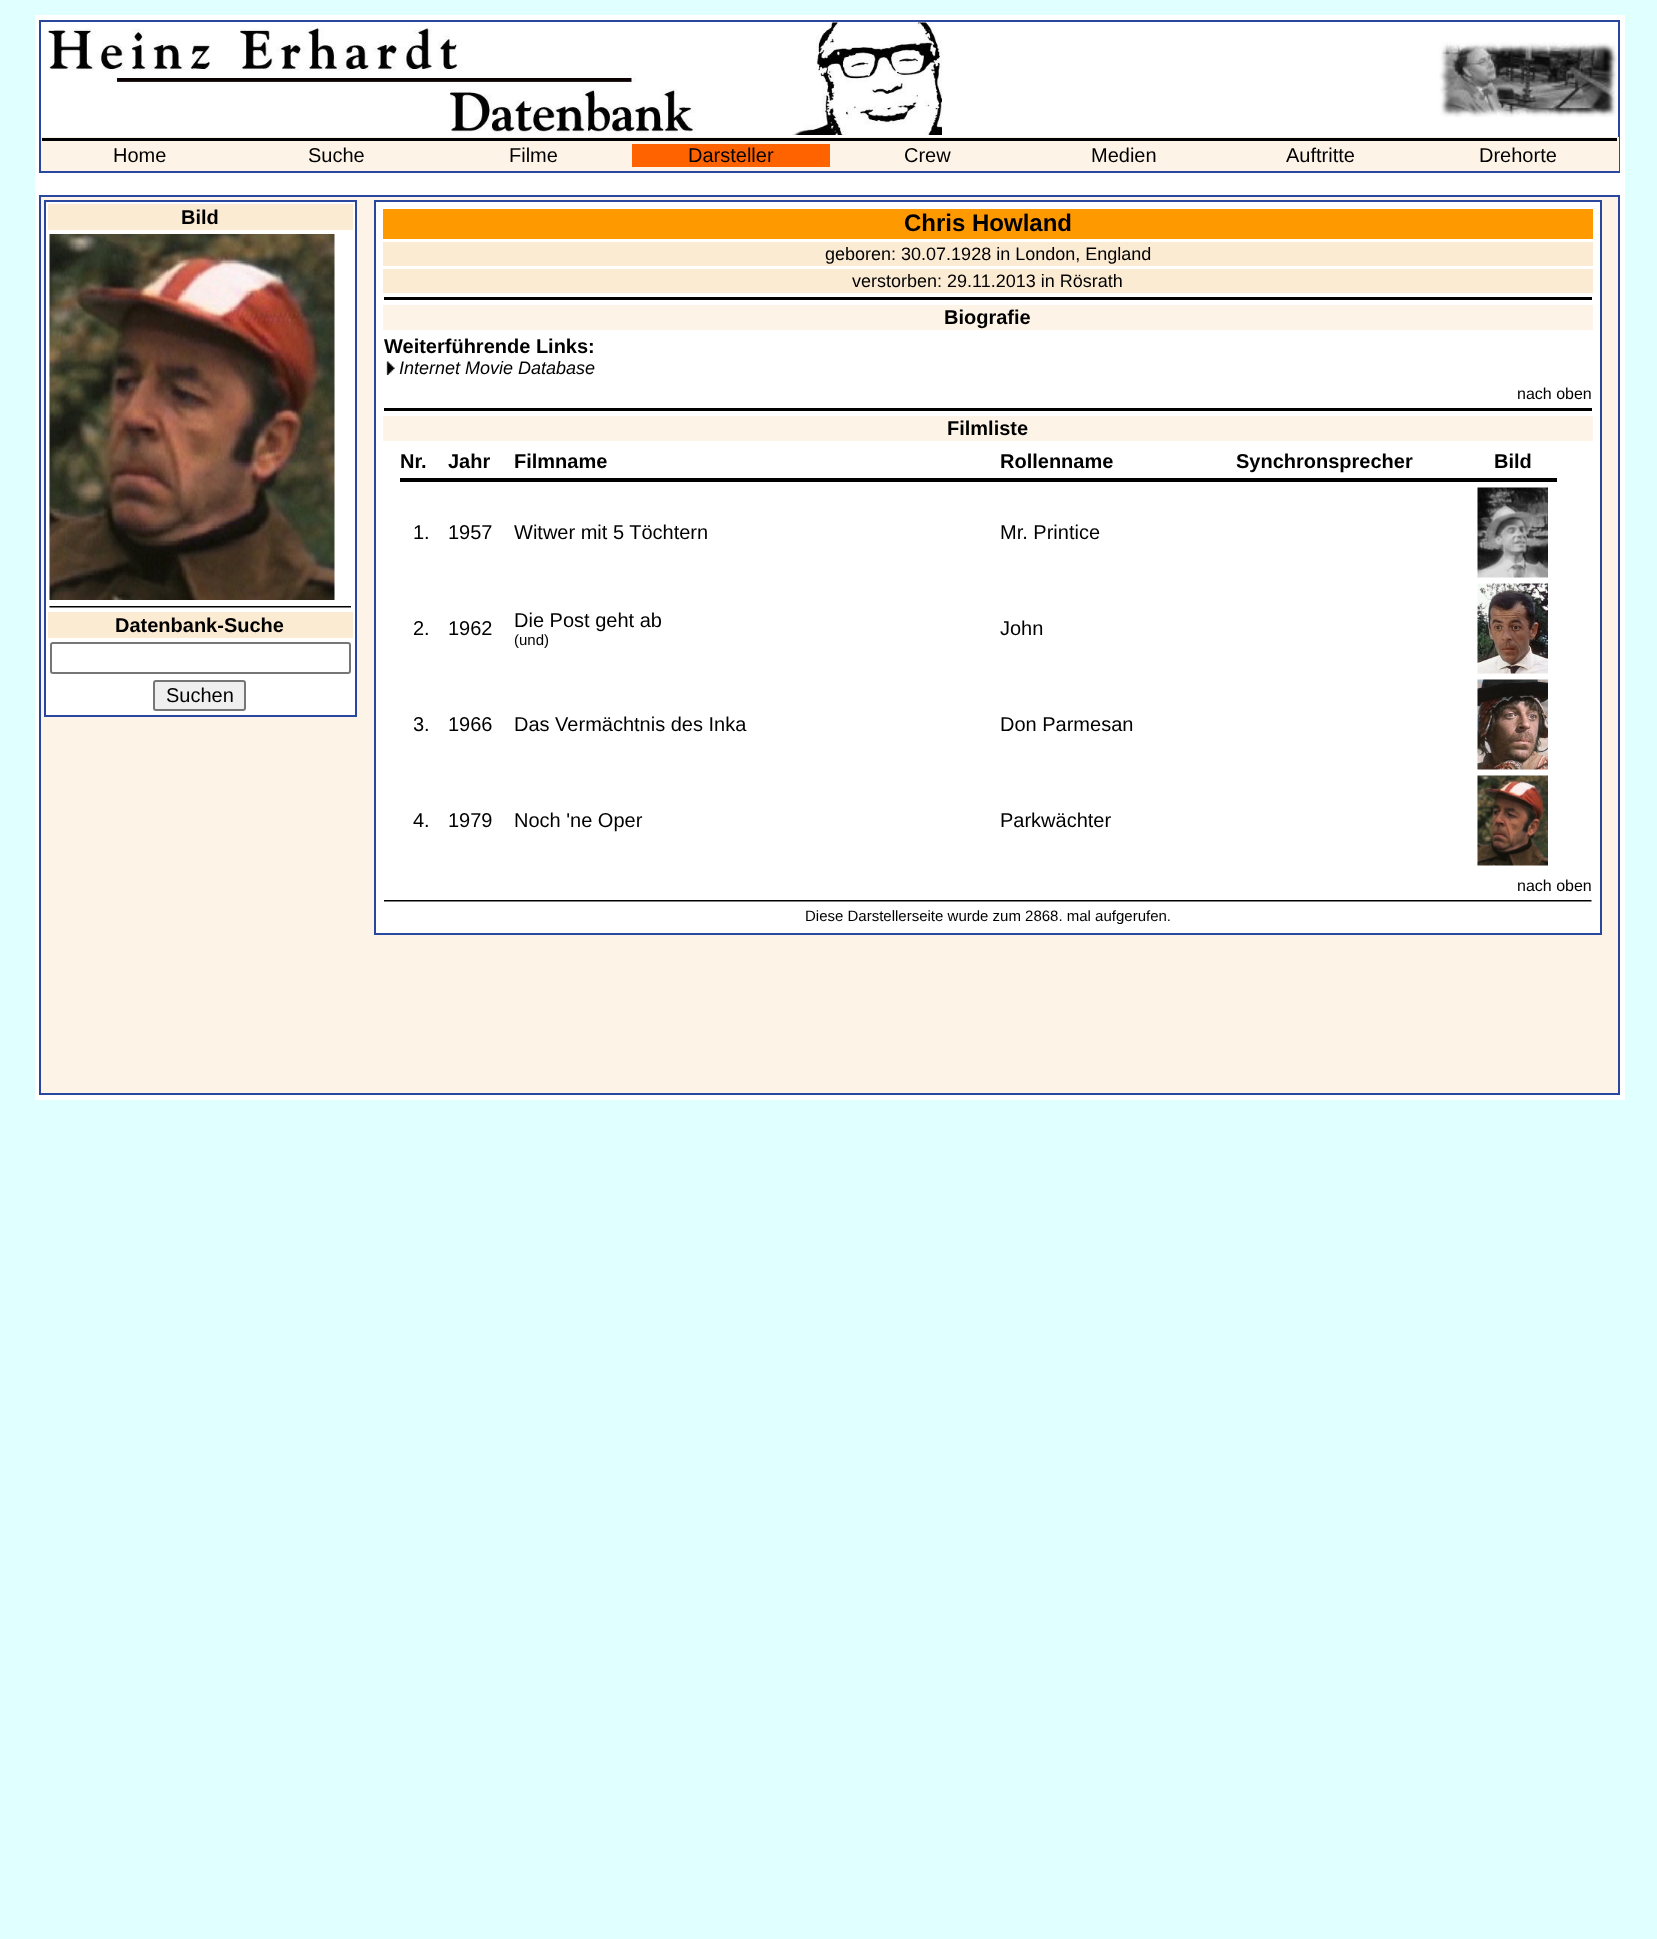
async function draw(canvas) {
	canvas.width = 1657;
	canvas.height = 1939;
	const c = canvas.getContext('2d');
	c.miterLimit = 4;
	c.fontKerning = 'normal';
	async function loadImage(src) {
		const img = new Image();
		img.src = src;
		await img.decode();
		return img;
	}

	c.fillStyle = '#e0ffff';
	c.fillRect(0, 0, 1657, 1939);
	c.fillStyle = '#fff';
	c.fillRect(35, 15, 1590, 1085);
	c.strokeStyle = '#29479f';
	c.lineWidth = 2;
	c.strokeRect(40, 21, 1579, 151);
	c.drawImage(await loadImage('img1.png'), 48, 22, 894, 113);
	c.drawImage(await loadImage('img2.png'), 1439, 42, 178, 75);
	c.fillStyle = '#fdf4e7';
	c.fillRect(41, 137, 1578, 34);
	c.fillStyle = '#000';
	c.fillRect(42, 138, 1575, 3);
	c.font = '20px Liberation Sans';
	for (const [text, x, y] of [
		['Home', 113, 162],
		['Suche', 308, 162],
		['Filme', 509, 162],
	]) {
		c.fillText(text, x, y);
	}
	c.fillStyle = '#ff6300';
	c.fillRect(632, 144, 198, 23);
	c.fillStyle = '#000';
	for (const [text, x, y] of [
		['Darsteller', 688, 162],
		['Crew', 904, 162],
		['Medien', 1091, 162],
		['Auftritte', 1286, 162],
		['Drehorte', 1479, 162],
	]) {
		c.fillText(text, x, y);
	}
	c.fillStyle = '#fdf4e7';
	c.beginPath();
	c.rect(40, 196, 1579, 898);
	c.fill();
	c.stroke();
	c.fillStyle = '#fff';
	c.beginPath();
	c.rect(45, 201, 311, 515);
	c.fill();
	c.stroke();
	c.fillStyle = '#fbebd3';
	c.fillRect(48, 204, 305, 26);
	c.font = 'bold 20px Liberation Sans';
	c.fillStyle = '#000';
	c.fillText('Bild', 181, 224);
	c.drawImage(await loadImage('img3.png'), 49, 234, 286, 366);
	c.drawImage(await loadImage('img4.png'), 49, 606, 302, 2);
	c.fillStyle = '#fbebd3';
	c.fillRect(48, 612, 305, 26);
	c.fillStyle = '#000';
	c.fillText('Datenbank-Suche', 115, 632);
	c.beginPath();
	c.roundRect(51, 643, 299, 30, 2);
	c.strokeStyle = '#767676';
	c.stroke();
	c.fillStyle = '#efefef';
	c.beginPath();
	c.roundRect(154, 681, 91, 29, 2);
	c.fill();
	c.stroke();
	c.font = '20px Liberation Sans';
	c.fillStyle = '#000';
	c.fillText('Suchen', 166, 702);
	c.fillStyle = '#fff';
	c.beginPath();
	c.rect(375, 201, 1226, 733);
	c.fill();
	c.strokeStyle = '#29479f';
	c.stroke();
	c.fillStyle = '#f90';
	c.fillRect(383, 209, 1210, 30);
	c.font = 'bold 24px Liberation Sans';
	c.fillStyle = '#000';
	c.fillText('Chris Howland', 904, 231);
	c.fillStyle = '#fbebd3';
	c.fillRect(383, 242, 1210, 24);
	c.font = '18px Liberation Sans';
	c.fillStyle = '#000';
	c.fillText('geboren: 30.07.1928 in London, England', 825, 260);
	c.fillStyle = '#fbebd3';
	c.fillRect(383, 269, 1210, 24);
	c.fillStyle = '#000';
	c.fillText('verstorben: 29.11.2013 in Rösrath', 852, 287);
	c.fillRect(384, 297, 1208, 3);
	c.fillStyle = '#fdf4e7';
	c.fillRect(383, 305, 1210, 25);
	c.font = 'bold 20px Liberation Sans';
	c.fillStyle = '#000';
	c.fillText('Biografie', 944, 324);
	c.fillText('Weiterführende Links:', 384, 353);
	c.drawImage(await loadImage('img5.png'), 386, 361, 9, 14);
	c.font = 'italic 18px Liberation Sans';
	c.fillText('Internet Movie Database', 399, 374);
	c.font = '16px Liberation Sans';
	c.fillText('nach oben', 1517, 399);
	c.fillRect(384, 408, 1208, 3);
	c.fillStyle = '#fdf4e7';
	c.fillRect(383, 416, 1210, 25);
	c.font = 'bold 20px Liberation Sans';
	c.fillStyle = '#000';
	for (const [text, x, y] of [
		['Filmliste', 947, 435],
		['Nr.', 400, 468],
		['Jahr', 448, 468],
		['Filmname', 514, 468],
		['Rollenname', 1000, 468],
		['Synchronsprecher', 1236, 468],
		['Bild', 1494, 468],
	]) {
		c.fillText(text, x, y);
	}
	c.fillRect(400, 478, 1157, 4);
	c.font = '20px Liberation Sans';
	for (const [text, x, y] of [
		['1.', 413, 539],
		['1957', 448, 539],
		['Witwer mit 5 Töchtern', 514, 539],
		['Mr. Printice', 1000, 539],
	]) {
		c.fillText(text, x, y);
	}
	c.drawImage(await loadImage('img6.png'), 1477, 487, 71, 91);
	for (const [text, x, y] of [
		['2.', 413, 635],
		['1962', 448, 635],
		['Die Post geht ab', 514, 627],
	]) {
		c.fillText(text, x, y);
	}
	c.font = '15px Liberation Sans';
	c.fillText('(und)', 514, 645);
	c.font = '20px Liberation Sans';
	c.fillText('John', 1000, 635);
	c.drawImage(await loadImage('img7.png'), 1477, 583, 71, 91);
	for (const [text, x, y] of [
		['3.', 413, 731],
		['1966', 448, 731],
		['Das Vermächtnis des Inka', 514, 731],
		['Don Parmesan', 1000, 731],
	]) {
		c.fillText(text, x, y);
	}
	c.drawImage(await loadImage('img8.png'), 1477, 679, 71, 91);
	for (const [text, x, y] of [
		['4.', 413, 827],
		['1979', 448, 827],
		['Noch \'ne Oper', 514, 827],
		['Parkwächter', 1000, 827],
	]) {
		c.fillText(text, x, y);
	}
	c.drawImage(await loadImage('img9.png'), 1477, 775, 71, 91);
	c.font = '16px Liberation Sans';
	c.fillText('nach oben', 1517, 891);
	c.drawImage(await loadImage('img10.png'), 384, 900, 1208, 2);
	c.font = '15px Liberation Sans';
	c.fillText('Diese Darstellerseite wurde zum 2868. mal aufgerufen.', 805, 921);
}

draw(document.querySelector('canvas'));
